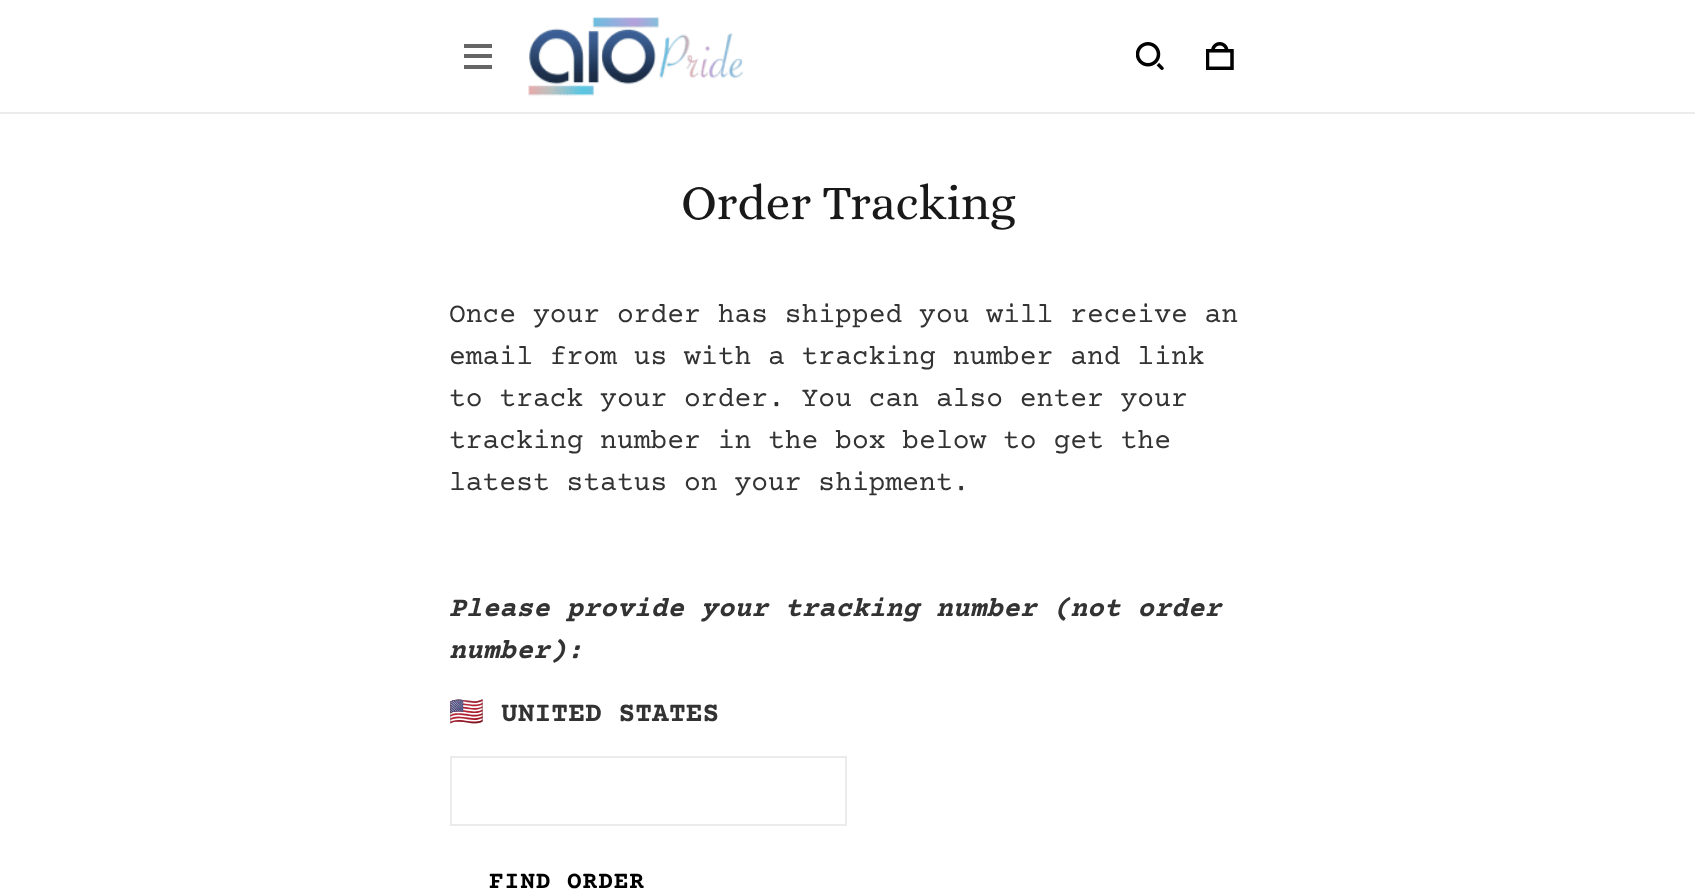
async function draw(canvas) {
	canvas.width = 1695;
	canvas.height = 896;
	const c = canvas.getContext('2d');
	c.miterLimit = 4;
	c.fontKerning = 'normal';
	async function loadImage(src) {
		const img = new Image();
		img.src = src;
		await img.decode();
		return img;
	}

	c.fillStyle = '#fff';
	c.fillRect(0, 0, 1695, 896);
	for (const [x, y, w, h, color] of [
		[0, 112, 1695, 2, '#ebebeb'],
		[464, 44, 28, 4, '#666'],
		[464, 54, 28, 4, '#666'],
		[464, 65, 28, 4, '#666'],
	]) {
		c.fillStyle = color;
		c.fillRect(x, y, w, h);
	}
	c.drawImage(await loadImage('img1.png'), 528, 17, 216, 80);
	c.drawImage(await loadImage('img2.png'), 1136, 42, 28, 28);
	c.drawImage(await loadImage('img3.png'), 1206, 42, 28, 28);
	c.font = '49px Alice';
	c.fillStyle = '#191919';
	c.fillText('Order Tracking', 681, 219);
	c.font = '28px Courier Prime';
	c.fillStyle = '#333';
	for (const [text, x, y] of [
		['Once your order has shipped you will receive an', 449, 322],
		['email from us with a tracking number and link', 449, 364],
		['to track your order. You can also enter your', 449, 406],
		['tracking number in the box below to get the', 449, 448],
		['latest status on your shipment.', 449, 490],
	]) {
		c.fillText(text, x, y);
	}
	c.font = 'italic bold 28px Courier Prime';
	c.fillText('Please provide your tracking number (not order', 449, 616);
	c.fillText('number):', 449, 658);
	c.font = 'bold 28px Noto Color Emoji';
	c.fillText('🇺🇸', 449, 721);
	c.font = 'bold 28px Courier Prime';
	c.fillText('UNITED STATES', 501, 721);
	c.strokeStyle = '#ebebeb';
	c.lineWidth = 2;
	c.strokeRect(451, 757, 395, 68);
	c.letterSpacing = '0.9px';
	c.font = 'bold 24.5px Courier Prime';
	c.fillStyle = '#000';
	c.fillText('FIND ORDER', 489, 888);
}

draw(document.querySelector('canvas'));
